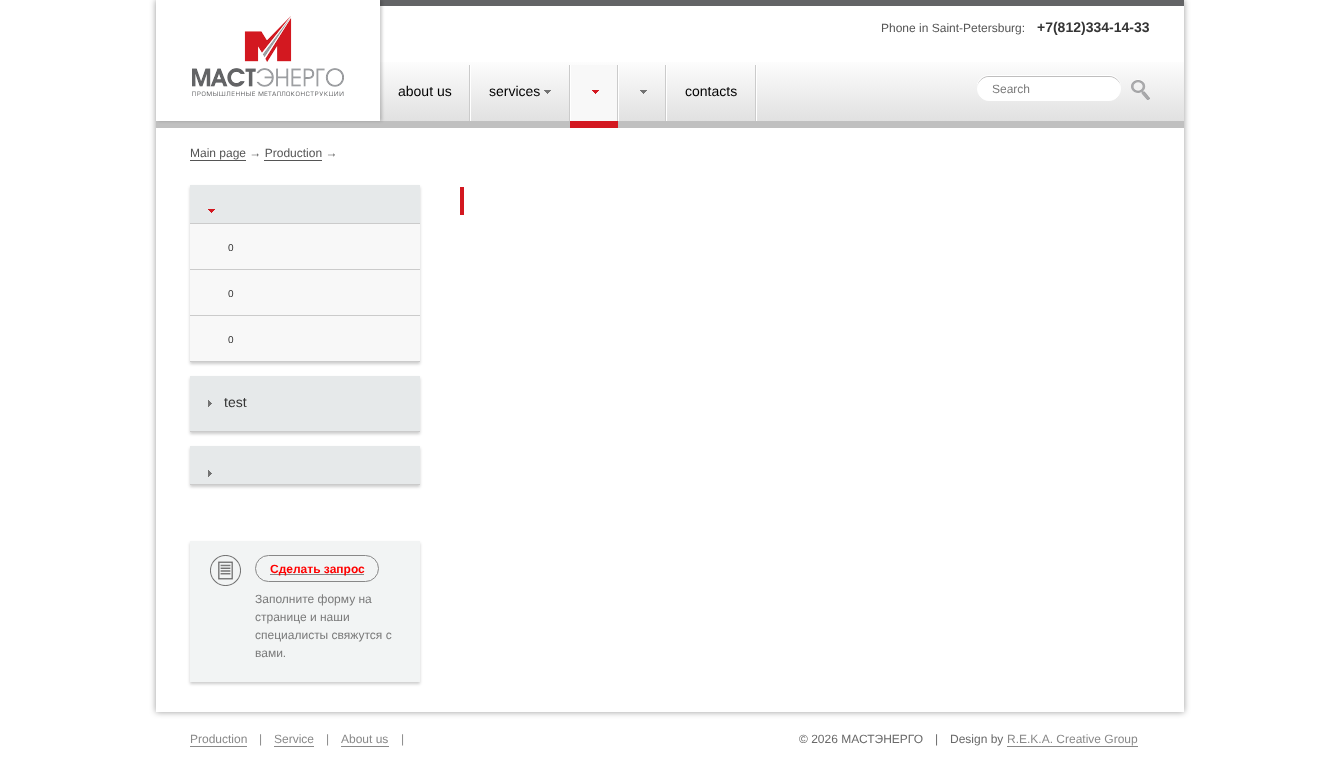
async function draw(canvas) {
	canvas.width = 1339;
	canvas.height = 777;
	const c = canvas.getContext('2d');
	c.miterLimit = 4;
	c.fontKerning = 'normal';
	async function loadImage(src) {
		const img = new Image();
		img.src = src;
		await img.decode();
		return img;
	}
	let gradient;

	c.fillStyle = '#fff';
	c.fillRect(0, 0, 1339, 777);
	c.save();
	c.beginPath();
	c.moveTo(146, 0);
	c.lineTo(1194, 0);
	c.lineTo(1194, 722);
	c.lineTo(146, 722);
	c.closePath();
	c.moveTo(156, 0);
	c.lineTo(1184, 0);
	c.lineTo(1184, 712);
	c.lineTo(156, 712);
	c.closePath();
	c.clip('evenodd');
	c.fillStyle = '#00000066';
	c.filter = 'blur(3px)';
	c.beginPath();
	c.rect(156, 0, 1028, 712);
	c.fill();
	c.filter = 'none';
	c.restore();
	gradient = c.createLinearGradient(670, 6, 670, 121);
	gradient.addColorStop(0.44, '#fff');
	gradient.addColorStop(1, '#e1e1e1');
	c.fillStyle = gradient;
	c.fillRect(380, 62, 804, 59);
	c.fillStyle = '#636466';
	c.fillRect(380, 0, 804, 6);
	c.fillStyle = '#c0c0c0';
	c.fillRect(156, 121, 1028, 7);
	c.fillStyle = '#00000033';
	c.filter = 'blur(1.5px)';
	c.beginPath();
	c.rect(158, 0, 224, 121);
	c.fill();
	c.filter = 'none';
	c.fillStyle = '#fff';
	c.fillRect(156, 0, 224, 121);
	c.drawImage(await loadImage('img1.png'), 192, 16, 152, 80);
	c.font = '12px Liberation Sans';
	c.fillStyle = '#555';
	c.fillText('Phone in Saint-Petersburg:', 881, 32);
	c.font = 'bold 14px Liberation Sans';
	c.fillStyle = '#353535';
	c.fillText('+7(812)334-14-33', 1037, 32);
	c.fillStyle = '#fff';
	c.fillRect(756, 65, 1, 56);
	c.fillStyle = '#cbcbcb';
	c.fillRect(469, 65, 1, 56);
	c.font = '14px Liberation Sans';
	c.fillStyle = '#000';
	c.fillText('about us', 398, 96);
	c.fillStyle = '#cbcbcb';
	c.fillRect(569, 65, 1, 56);
	c.fillStyle = '#fff';
	c.fillRect(470, 65, 1, 56);
	c.fillStyle = '#000';
	c.fillText('services', 489, 96);
	c.drawImage(await loadImage('img2.png'), 544, 90, 7, 4);
	for (const [x, y, w, h, color] of [
		[570, 121, 48, 7, '#d31820'],
		[571, 65, 46, 56, '#f8f8f8'],
		[617, 65, 1, 56, '#cbcbcb'],
		[570, 65, 1, 56, '#fff'],
	]) {
		c.fillStyle = color;
		c.fillRect(x, y, w, h);
	}
	c.drawImage(await loadImage('img3.png'), 592, 90, 7, 4);
	c.fillStyle = '#cbcbcb';
	c.fillRect(665, 65, 1, 56);
	c.fillStyle = '#fff';
	c.fillRect(618, 65, 1, 56);
	c.drawImage(await loadImage('img2.png'), 640, 90, 7, 4);
	c.fillStyle = '#cbcbcb';
	c.fillRect(755, 65, 1, 56);
	c.fillStyle = '#fff';
	c.fillRect(666, 65, 1, 56);
	c.fillStyle = '#000';
	c.fillText('contacts', 685, 96);
	c.fillStyle = '#fff';
	c.beginPath();
	c.moveTo(989, 75);
	c.bezierCurveTo(982, 75, 976, 81, 977, 88);
	c.bezierCurveTo(978, 82, 983, 77, 989, 77);
	c.lineTo(1109, 77);
	c.bezierCurveTo(1115, 77, 1120, 82, 1121, 88);
	c.bezierCurveTo(1122, 81, 1116, 75, 1109, 75);
	c.closePath();
	c.fill();
	c.fillStyle = '#bfbebe';
	c.beginPath();
	c.moveTo(989, 76);
	c.bezierCurveTo(982, 76, 977, 82, 977, 89);
	c.bezierCurveTo(977, 82, 983, 77, 989, 77);
	c.lineTo(1109, 77);
	c.bezierCurveTo(1115, 77, 1121, 82, 1121, 88);
	c.bezierCurveTo(1121, 82, 1116, 76, 1109, 76);
	c.closePath();
	c.fill();
	c.fillStyle = '#fff';
	c.beginPath();
	c.roundRect(977.5, 77.5, 143, 23, 11.5);
	c.fill();
	c.strokeStyle = '#fff';
	c.stroke();
	c.font = '12px Liberation Sans';
	c.fillStyle = '#7a7a7a';
	c.fillText('Search', 992, 93);
	c.drawImage(await loadImage('img4.png'), 1131, 79, 19, 21);
	c.fillStyle = '#555';
	c.fillRect(190, 160, 56, 1);
	c.fillText('Main page → Production →', 190, 157);
	c.fillRect(264, 160, 58, 1);
	c.fillStyle = '#d31820';
	c.fillRect(460, 187, 4, 28);
	c.fillStyle = '#00000033';
	c.filter = 'blur(1.5px)';
	c.beginPath();
	c.rect(190, 187, 230, 177);
	c.fill();
	c.filter = 'none';
	c.fillStyle = '#e6e9ea';
	c.fillRect(190, 185, 230, 38);
	c.fillStyle = '#cbcbcb';
	c.fillRect(190, 223, 230, 1);
	c.drawImage(await loadImage('img5.png'), 208, 209, 7, 4);
	c.fillStyle = '#f8f8f8';
	c.fillRect(190, 224, 230, 45);
	c.fillStyle = '#cbcbcb';
	c.fillRect(190, 269, 230, 1);
	c.font = '10px Liberation Sans';
	c.fillStyle = '#353535';
	c.fillText('0', 228, 251);
	c.fillStyle = '#f8f8f8';
	c.fillRect(190, 270, 230, 45);
	c.fillStyle = '#cbcbcb';
	c.fillRect(190, 315, 230, 1);
	c.fillStyle = '#353535';
	c.fillText('0', 228, 297);
	c.fillStyle = '#f8f8f8';
	c.fillRect(190, 316, 230, 45);
	c.fillStyle = '#cbcbcb';
	c.fillRect(190, 361, 230, 1);
	c.fillStyle = '#353535';
	c.fillText('0', 228, 343);
	c.fillStyle = '#00000033';
	c.filter = 'blur(1.5px)';
	c.beginPath();
	c.rect(190, 378, 230, 56);
	c.fill();
	c.filter = 'none';
	c.fillStyle = '#e6e9ea';
	c.fillRect(190, 376, 230, 55);
	c.fillStyle = '#cbcbcb';
	c.fillRect(190, 431, 230, 1);
	c.drawImage(await loadImage('img6.png'), 208, 400, 4, 7);
	c.font = '14px Liberation Sans';
	c.fillStyle = '#353535';
	c.fillText('test', 224, 407);
	c.fillStyle = '#00000033';
	c.filter = 'blur(1.5px)';
	c.beginPath();
	c.rect(190, 448, 230, 39);
	c.fill();
	c.filter = 'none';
	c.fillStyle = '#e6e9ea';
	c.fillRect(190, 446, 230, 38);
	c.fillStyle = '#cbcbcb';
	c.fillRect(190, 484, 230, 1);
	c.drawImage(await loadImage('img6.png'), 208, 470, 4, 7);
	c.fillStyle = '#00000033';
	c.filter = 'blur(1.5px)';
	c.beginPath();
	c.rect(190, 543, 230, 141);
	c.fill();
	c.filter = 'none';
	c.fillStyle = '#f2f4f4';
	c.fillRect(190, 541, 230, 141);
	c.drawImage(await loadImage('img7.png'), 210, 555, 31, 31);
	c.beginPath();
	c.roundRect(255.5, 555.5, 123, 26, 13);
	c.strokeStyle = '#888';
	c.stroke();
	c.fillStyle = '#888';
	c.fillRect(270, 574, 94, 1);
	c.font = 'bold 12px Liberation Sans';
	c.fillStyle = '#f00';
	c.fillText('Сделать запрос', 270, 573);
	c.font = '12px Liberation Sans';
	c.fillStyle = '#7a7a7a';
	for (const [text, x, y] of [
		['Заполните форму на', 255, 603],
		['странице и наши', 255, 621],
		['специалисты свяжутся с', 255, 639],
		['вами.', 255, 657],
	]) {
		c.fillText(text, x, y);
	}
	c.fillStyle = '#898989';
	c.fillRect(190, 746, 57, 1);
	c.fillText('Production', 190, 743);
	c.fillText('|', 259, 743);
	c.fillRect(274, 746, 40, 1);
	c.fillText('Service', 274, 743);
	c.fillText('|', 326, 743);
	c.fillRect(341, 746, 48, 1);
	c.fillText('About us', 341, 743);
	c.fillText('|', 401, 743);
	c.fillStyle = '#696969';
	for (const [text, x, y] of [
		['© 2026 МАСТЭНЕРГО', 799, 743],
		['|', 935, 743],
		['Design by', 950, 743],
	]) {
		c.fillText(text, x, y);
	}
	c.fillStyle = '#898989';
	c.fillRect(1007, 746, 131, 1);
	c.fillText('R.E.K.A. Creative Group', 1007, 743);
}

draw(document.querySelector('canvas'));
